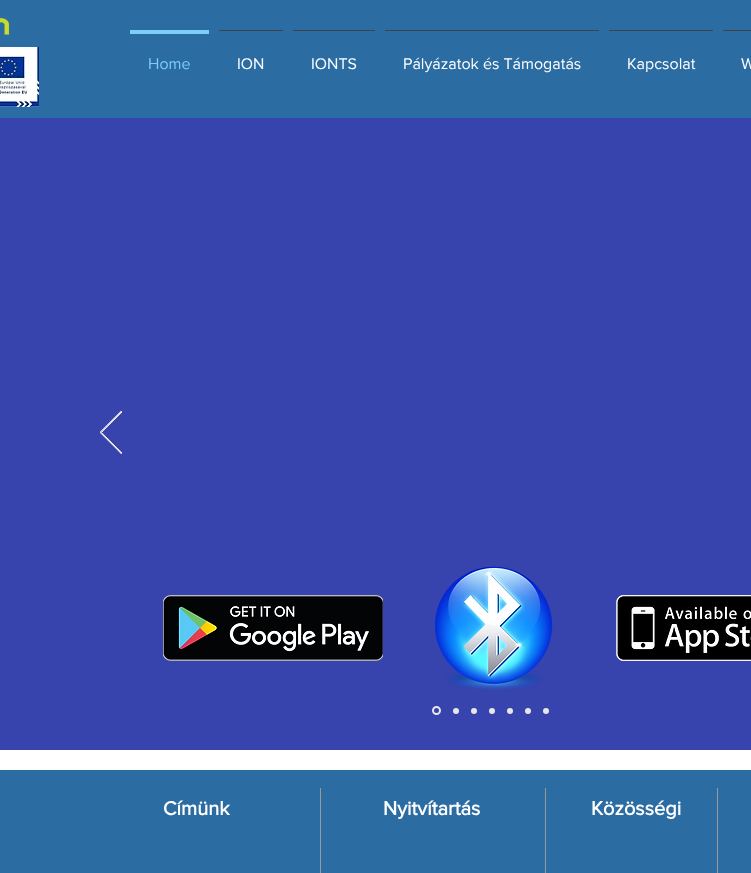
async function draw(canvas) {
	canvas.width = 751;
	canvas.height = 873;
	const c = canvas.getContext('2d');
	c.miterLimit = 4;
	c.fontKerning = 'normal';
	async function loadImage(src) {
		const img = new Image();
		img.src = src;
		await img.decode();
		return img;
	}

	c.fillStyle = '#fff';
	c.fillRect(0, 0, 751, 873);
	c.fillStyle = '#2b6ca3';
	c.fillRect(0, 0, 751, 118);
	c.drawImage(await loadImage('img1.png'), 0, 17, 9, 18);
	c.drawImage(await loadImage('img2.png'), 0, 47, 39, 60);
	c.fillStyle = '#7fccf7';
	c.fillRect(130, 30, 79, 4);
	c.font = '16px "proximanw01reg"';
	c.fillText('Home', 148, 69);
	c.fillStyle = '#414141';
	c.fillRect(219, 30, 64, 1);
	c.fillStyle = '#fff';
	c.fillText('ION', 237, 69);
	c.fillStyle = '#414141';
	c.fillRect(293, 30, 82, 1);
	c.fillStyle = '#fff';
	c.fillText('IONTS', 311, 69);
	c.fillStyle = '#414141';
	c.fillRect(385, 30, 214, 1);
	c.fillStyle = '#fff';
	c.fillText('Pályázatok és Támogatás', 403, 69);
	c.fillStyle = '#414141';
	c.fillRect(609, 30, 104, 1);
	c.fillStyle = '#fff';
	c.fillText('Kapcsolat', 627, 69);
	c.fillStyle = '#414141';
	c.fillRect(723, 30, 28, 1);
	c.fillStyle = '#fff';
	c.fillText('W', 741, 69);
	c.fillStyle = '#3744ad';
	c.fillRect(0, 118, 751, 632);
	c.drawImage(await loadImage('img3.png'), 163, 595, 220, 66);
	c.drawImage(await loadImage('img4.png'), 435, 566, 118, 124);
	c.drawImage(await loadImage('img5.png'), 616, 595, 135, 66);
	c.fillStyle = '#e8e6e6';
	c.beginPath();
	c.moveTo(121, 454);
	c.lineTo(100, 432);
	c.lineTo(121, 411);
	c.lineTo(122, 412);
	c.lineTo(101, 432);
	c.lineTo(122, 453);
	c.closePath();
	c.fill();
	c.save();
	c.beginPath();
	c.rect(100, 411, 22, 43);
	c.clip();
	c.beginPath();
	c.moveTo(121.5, 453.5);
	c.lineTo(100, 432.5);
	c.lineTo(121.5, 411);
	c.lineTo(122, 412);
	c.lineTo(101.5, 432.5);
	c.lineTo(122, 453);
	c.closePath();
	c.strokeStyle = '#e8e6e6';
	c.stroke();
	c.restore();
	c.beginPath();
	c.arc(436.5, 710.5, 3.5, 0, 2 * Math.PI);
	c.strokeStyle = '#e8e6e6';
	c.lineWidth = 2;
	c.stroke();
	c.beginPath();
	c.arc(456, 711, 3, 0, 2 * Math.PI);
	c.fill();
	c.beginPath();
	c.arc(474, 711, 3, 0, 2 * Math.PI);
	c.fill();
	c.beginPath();
	c.arc(492, 711, 3, 0, 2 * Math.PI);
	c.fill();
	c.beginPath();
	c.arc(510, 711, 3, 0, 2 * Math.PI);
	c.fill();
	c.beginPath();
	c.arc(528, 711, 3, 0, 2 * Math.PI);
	c.fill();
	c.beginPath();
	c.arc(546, 711, 3, 0, 2 * Math.PI);
	c.fill();
	c.fillStyle = '#2b6ca3';
	c.fillRect(0, 770, 751, 103);
	c.font = 'bold 20px "proximanw01reg"';
	c.fillStyle = '#fff';
	c.fillText('Címünk', 163, 815);
	c.fillStyle = '#999997';
	c.fillRect(320, 788, 1, 85);
	c.fillStyle = '#fff';
	c.fillText('Nyitvítartás', 383, 815);
	c.fillStyle = '#999997';
	c.fillRect(545, 788, 1, 85);
	c.fillStyle = '#fff';
	c.fillText('Közösségi', 591, 815);
	c.fillStyle = '#999997';
	c.fillRect(717, 788, 1, 85);
}

draw(document.querySelector('canvas'));
